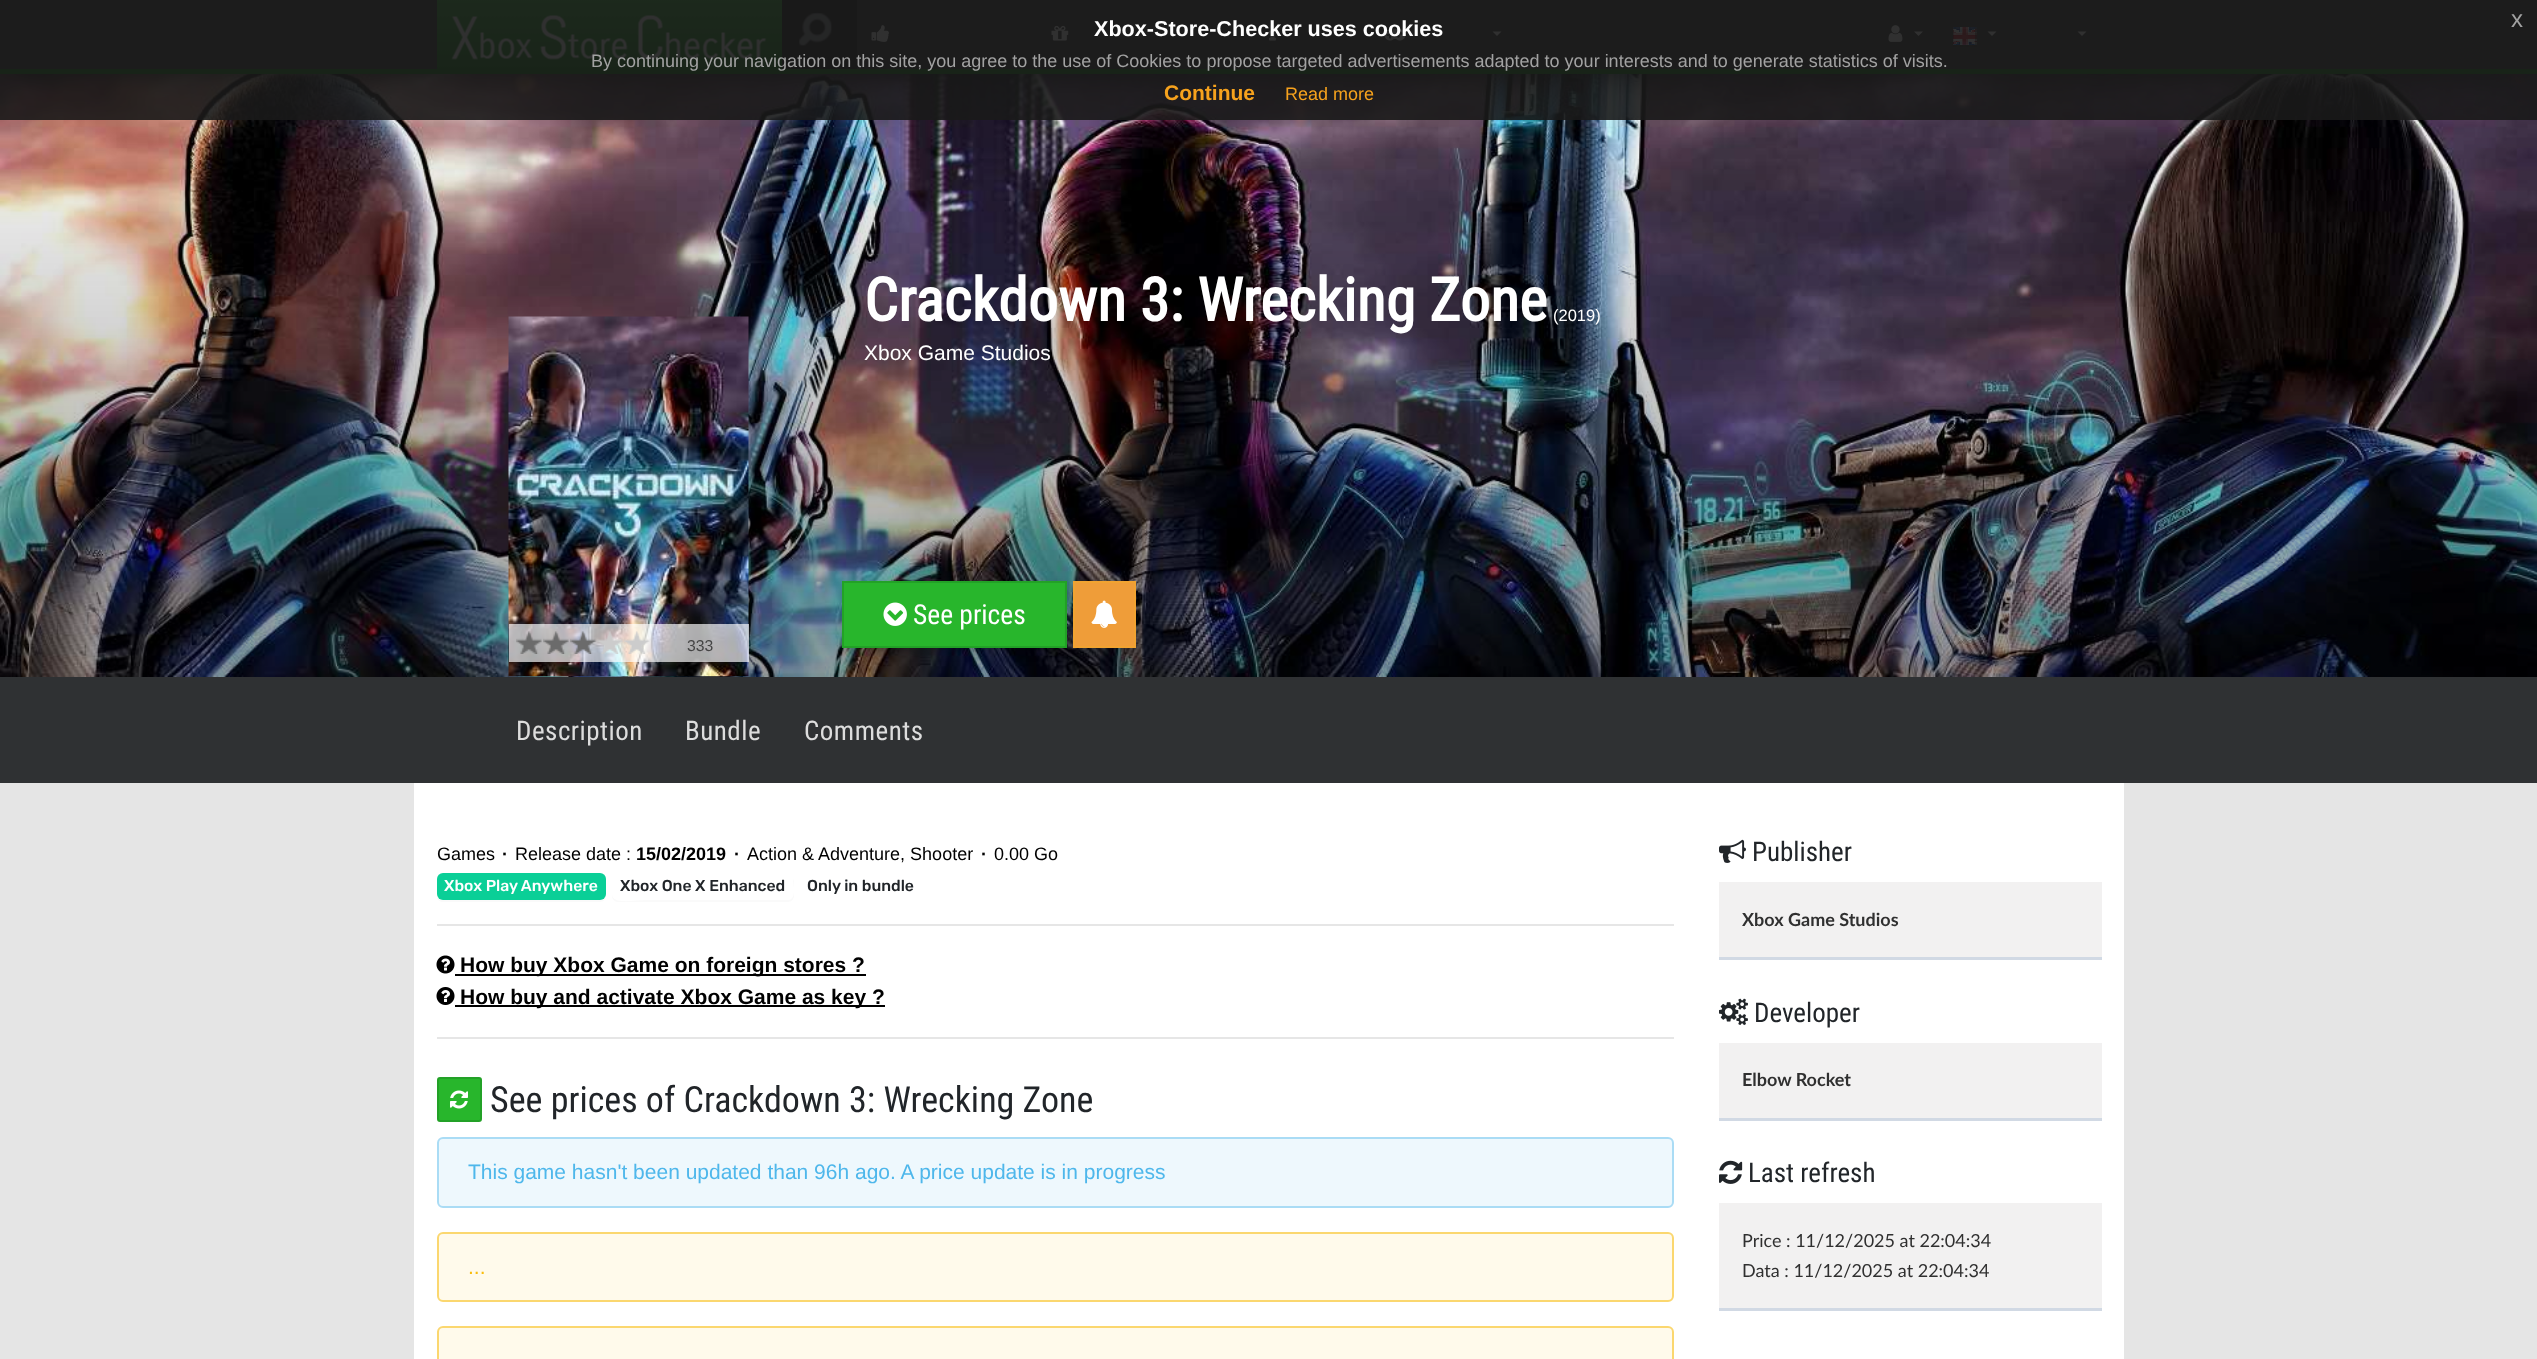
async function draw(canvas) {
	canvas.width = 2537;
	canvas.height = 1359;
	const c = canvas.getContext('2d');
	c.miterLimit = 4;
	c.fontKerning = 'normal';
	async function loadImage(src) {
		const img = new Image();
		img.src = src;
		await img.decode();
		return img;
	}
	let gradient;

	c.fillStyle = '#e5e5e5';
	c.fillRect(0, 0, 2537, 1359);
	c.drawImage(await loadImage('img10.png'), 0, 74, 2537, 603);
	c.fillStyle = '#000';
	c.filter = 'blur(15px)';
	c.beginPath();
	c.rect(0, 0, 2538, 74);
	c.fill();
	c.filter = 'none';
	c.fillStyle = '#333';
	c.fillRect(0, 0, 2537, 69);
	c.fillStyle = '#107c10';
	c.fillRect(0, 69, 2537, 5);
	gradient = c.createLinearGradient(609, 0, 609, 72);
	gradient.addColorStop(0, '#3cb43c');
	gradient.addColorStop(1, '#107c10');
	c.fillStyle = gradient;
	c.fillRect(437, 0, 345, 69);
	c.drawImage(await loadImage('img1.png'), 451, 15, 316, 45);
	c.fillStyle = '#181818';
	c.fillRect(782, 0, 75, 69);
	c.drawImage(await loadImage('img2.png'), 798, 12, 34, 34);
	c.drawImage(await loadImage('img3.png'), 799, 13, 33, 33);
	c.drawImage(await loadImage('img4.png'), 871, 25, 18, 17);
	c.drawImage(await loadImage('img5.png'), 1051, 25, 18, 16);
	c.drawImage(await loadImage('img6.png'), 1269, 25, 7, 16);
	c.fillStyle = '#fff';
	c.beginPath();
	c.moveTo(1345.5, 31.5);
	c.lineTo(1354.5, 31.5);
	c.lineTo(1350, 36);
	c.closePath();
	c.fill();
	c.drawImage(await loadImage('img7.png'), 1384, 29, 22, 12);
	c.beginPath();
	c.moveTo(1492.5, 31.5);
	c.lineTo(1501.5, 31.5);
	c.lineTo(1497, 36);
	c.closePath();
	c.fill();
	c.drawImage(await loadImage('img8.png'), 1888, 25, 15, 17);
	c.beginPath();
	c.moveTo(1914, 31.5);
	c.lineTo(1923, 31.5);
	c.lineTo(1918.5, 36);
	c.closePath();
	c.fill();
	c.drawImage(await loadImage('img9.png'), 1953, 27, 24, 20);
	c.beginPath();
	c.moveTo(1987.5, 31.5);
	c.lineTo(1996.5, 31.5);
	c.lineTo(1992, 36);
	c.closePath();
	c.fill();
	c.beginPath();
	c.moveTo(2077.5, 31.5);
	c.lineTo(2086.5, 31.5);
	c.lineTo(2082, 36);
	c.closePath();
	c.fill();
	c.fillStyle = '#191919e6';
	c.fillRect(0, 0, 2537, 120);
	c.font = 'bold 21.6px Liberation Sans';
	c.fillStyle = '#fff';
	c.fillText('Xbox-Store-Checker uses cookies', 1094, 36);
	c.font = '24px Liberation Sans';
	c.fillStyle = '#a2a2a2';
	c.fillText('x', 2511, 27);
	c.font = '18px Liberation Sans';
	c.fillText('By continuing your navigation on this site, you agree to the use of Cookies to propose targeted advertisements adapted to your interests and to generate statistics of visits.', 591, 67);
	c.font = 'bold 21px Liberation Sans';
	c.fillStyle = '#f6a21d';
	c.fillText('Continue', 1164, 100);
	c.font = '18px Liberation Sans';
	c.fillText('Read more', 1285, 100);
	c.font = 'bold 60px Roboto Condensed';
	c.fillStyle = '#fff';
	c.fillText('Crackdown 3: Wrecking Zone', 864, 321);
	c.font = '16.5px Liberation Sans';
	c.fillText('(2019)', 1553, 321);
	c.font = '21px Liberation Sans';
	c.fillText('Xbox Game Studios', 864, 360);
	c.fillStyle = '#00000033';
	c.filter = 'blur(4px)';
	c.beginPath();
	c.rect(842, 585, 225, 68);
	c.fill();
	c.filter = 'none';
	c.fillStyle = '#28b62c';
	c.beginPath();
	c.rect(843, 582, 223, 65);
	c.fill();
	c.strokeStyle = '#23a127';
	c.lineWidth = 2;
	c.stroke();
	c.drawImage(await loadImage('img11.png'), 883, 602, 24, 24);
	c.font = '27.5px Roboto Condensed';
	c.fillStyle = '#fff';
	c.fillText('See prices', 913, 624);
	c.fillStyle = '#00000033';
	c.filter = 'blur(4px)';
	c.beginPath();
	c.rect(1073, 585, 63, 68);
	c.fill();
	c.filter = 'none';
	c.fillStyle = '#ef9d39';
	c.beginPath();
	c.rect(1074, 582, 61, 65);
	c.fill();
	c.strokeStyle = '#f1a331';
	c.stroke();
	c.drawImage(await loadImage('img12.png'), 1091, 600, 26, 28);
	c.drawImage(await loadImage('img13.png'), 508, 316, 241, 361);
	c.fillStyle = '#ffffffab';
	c.fillRect(509, 624, 240, 38);
	c.drawImage(await loadImage('img14.png'), 516, 631, 26, 23);
	c.drawImage(await loadImage('img15.png'), 543, 631, 26, 23);
	c.drawImage(await loadImage('img16.png'), 570, 631, 26, 23);
	c.drawImage(await loadImage('img17.png'), 597, 631, 26, 23);
	c.drawImage(await loadImage('img18.png'), 624, 631, 26, 23);
	c.font = '15.75px Liberation Sans';
	c.fillStyle = '#444';
	c.fillText('333', 687, 651);
	c.fillStyle = '#2f3133';
	c.fillRect(0, 677, 2537, 106);
	c.letterSpacing = '0.5px';
	c.font = '27px Roboto Condensed';
	c.fillStyle = '#ddd';
	for (const [text, x, y] of [
		['Description', 516, 740],
		['Bundle', 685, 740],
		['Comments', 804, 740],
	]) {
		c.fillText(text, x, y);
	}
	c.fillStyle = '#fff';
	c.fillRect(414, 783, 1710, 576);
	c.letterSpacing = '0px';
	c.font = '18px Liberation Sans';
	c.fillStyle = '#000';
	c.fillText('Games', 437, 860);
	c.font = 'bold 18px Liberation Sans';
	c.fillText('·', 502, 860);
	c.font = '18px Liberation Sans';
	c.fillText('Release date :', 515, 860);
	c.font = 'bold 18px Liberation Sans';
	c.fillText('15/02/2019', 636, 860);
	c.fillText('·', 734, 860);
	c.font = '18px Liberation Sans';
	c.fillText('Action & Adventure, Shooter', 747, 860);
	c.font = 'bold 18px Liberation Sans';
	c.fillText('·', 981, 860);
	c.font = '18px Liberation Sans';
	c.fillText('0.00 Go', 994, 860);
	c.fillStyle = '#fafafa';
	c.beginPath();
	c.moveTo(437, 896);
	c.bezierCurveTo(437, 900, 440, 902, 443, 902);
	c.lineTo(600, 902);
	c.bezierCurveTo(603, 902, 606, 899, 606, 896);
	c.lineTo(606, 894);
	c.bezierCurveTo(606, 897, 603, 900, 600, 900);
	c.lineTo(442, 900);
	c.bezierCurveTo(440, 900, 438, 899, 437, 896);
	c.closePath();
	c.fill();
	c.fillStyle = '#0acf97';
	c.beginPath();
	c.roundRect(437, 873, 169, 27, 6);
	c.fill();
	c.font = '500 15.75px Rubik';
	c.fillStyle = '#fff';
	c.fillText('Xbox Play Anywhere', 444, 891);
	c.fillStyle = '#fafafa';
	c.beginPath();
	c.moveTo(612, 894);
	c.lineTo(612, 896);
	c.bezierCurveTo(612, 899, 615, 902, 618, 902);
	c.lineTo(788, 902);
	c.bezierCurveTo(791, 902, 794, 899, 794, 896);
	c.lineTo(794, 881);
	c.lineTo(793, 879);
	c.lineTo(794, 889);
	c.bezierCurveTo(794, 893, 794, 900, 788, 900);
	c.lineTo(646, 900);
	c.bezierCurveTo(634, 900, 612, 905, 612, 894);
	c.closePath();
	c.fill();
	c.fillStyle = '#212529';
	c.fillText('Xbox One X Enhanced', 620, 891);
	c.fillText('Only in bundle', 807, 891);
	c.fillStyle = '#e6e6e6';
	c.fillRect(437, 924, 1237, 2);
	c.drawImage(await loadImage('img19.png'), 436, 955, 19, 19);
	c.fillStyle = '#000';
	c.fillRect(455, 974, 411, 2);
	c.font = 'bold 21px Liberation Sans';
	c.fillText('How buy Xbox Game on foreign stores ?', 460, 972);
	c.drawImage(await loadImage('img20.png'), 436, 987, 19, 18);
	c.fillRect(455, 1005, 430, 2);
	c.fillText('How buy and activate Xbox Game as key ?', 460, 1004);
	c.fillStyle = '#e6e6e6';
	c.fillRect(437, 1037, 1237, 2);
	c.fillStyle = '#28b62c';
	c.beginPath();
	c.roundRect(438, 1078, 43, 43, 2);
	c.fill();
	c.strokeStyle = '#23a127';
	c.stroke();
	c.drawImage(await loadImage('img21.png'), 450, 1090, 18, 19);
	c.font = '36px Roboto Condensed';
	c.fillStyle = '#212529';
	c.fillText('See prices of Crackdown 3: Wrecking Zone', 490, 1112);
	c.fillStyle = '#eef8fd';
	c.beginPath();
	c.roundRect(438, 1138, 1235, 69, 5);
	c.fill();
	c.strokeStyle = '#aadcf5';
	c.stroke();
	c.font = '21px Liberation Sans';
	c.fillStyle = '#4eb7eb';
	c.fillText('This game hasn\'t been updated than 96h ago. A price update is in progress', 468, 1179);
	c.fillStyle = '#fffaeb';
	c.beginPath();
	c.roundRect(438, 1233, 1235, 68, 5);
	c.fill();
	c.strokeStyle = '#fbd76f';
	c.stroke();
	c.fillStyle = '#f9bc0b';
	c.fillText('...', 468, 1274);
	c.fillStyle = '#fffaeb';
	c.beginPath();
	c.roundRect(438, 1327, 1235, 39, 5);
	c.fill();
	c.stroke();
	c.drawImage(await loadImage('img22.png'), 1719, 839, 27, 24);
	c.font = '27px Roboto Condensed';
	c.fillStyle = '#212529';
	c.fillText('Publisher', 1752, 861);
	c.fillStyle = '#f2f1f1';
	c.fillRect(1719, 882, 383, 75);
	c.fillStyle = '#d1d9e4';
	c.fillRect(1719, 957, 383, 3);
	c.font = 'bold 18px Lato';
	c.fillStyle = '#303030';
	c.fillText('Xbox Game Studios', 1742, 926);
	c.drawImage(await loadImage('img23.png'), 1719, 998, 29, 28);
	c.font = '27px Roboto Condensed';
	c.fillStyle = '#212529';
	c.fillText('Developer', 1754, 1022);
	c.fillStyle = '#f2f1f1';
	c.fillRect(1719, 1043, 383, 75);
	c.fillStyle = '#d1d9e4';
	c.fillRect(1719, 1118, 383, 3);
	c.font = 'bold 18px Lato';
	c.fillStyle = '#303030';
	c.fillText('Elbow Rocket', 1742, 1086);
	c.drawImage(await loadImage('img24.png'), 1719, 1160, 24, 24);
	c.font = '27px Roboto Condensed';
	c.fillStyle = '#212529';
	c.fillText('Last refresh', 1748, 1182);
	c.fillStyle = '#f2f1f1';
	c.fillRect(1719, 1203, 383, 105);
	c.fillStyle = '#d1d9e4';
	c.fillRect(1719, 1308, 383, 3);
	c.font = '18px Lato';
	c.fillStyle = '#303030';
	c.fillText('Price : 11/12/2025 at 22:04:34', 1742, 1247);
	c.fillText('Data : 11/12/2025 at 22:04:34', 1742, 1277);
}

draw(document.querySelector('canvas'));
